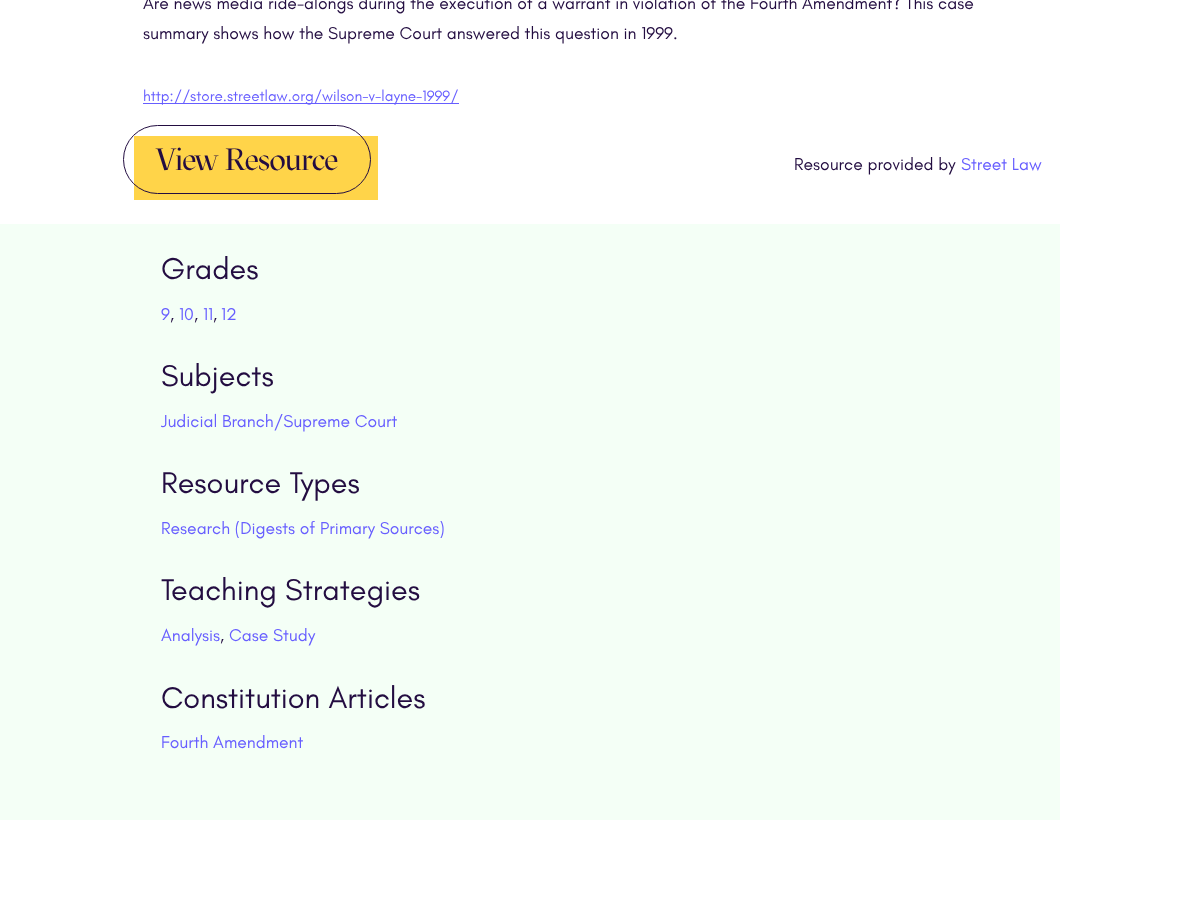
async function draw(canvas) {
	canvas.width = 1183;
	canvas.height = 912;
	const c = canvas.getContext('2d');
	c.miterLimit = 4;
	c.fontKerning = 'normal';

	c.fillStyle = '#fff';
	c.fillRect(0, 0, 1183, 912);
	c.font = '17.5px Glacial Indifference';
	c.fillStyle = '#230d41';
	c.fillText('Are news media ride-alongs during the execution of a warrant in violation of the Fourth Amendment? This case', 143, 9);
	c.fillText('summary shows how the Supreme Court answered this question in 1999.', 143, 39);
	c.fillStyle = '#675eff';
	c.fillRect(143, 103, 316, 1);
	c.font = '15.3px Glacial Indifference';
	c.fillText('http://store.streetlaw.org/wilson-v-layne-1999/', 143, 101);
	c.fillStyle = '#ffd449';
	c.fillRect(134, 136, 244, 64);
	c.beginPath();
	c.roundRect(123.5, 125.5, 247, 68, 34);
	c.strokeStyle = '#230d41';
	c.stroke();
	c.font = '30.6px "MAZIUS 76"';
	c.fillStyle = '#230d41';
	c.fillText('View Resource', 156, 170);
	c.font = '17.5px Glacial Indifference';
	c.fillText('Resource provided by', 794, 170);
	c.fillStyle = '#675eff';
	c.fillText('Street Law', 961, 170);
	c.fillStyle = '#f4fff6';
	c.fillRect(0, 224, 1060, 596);
	c.font = '30.6px Glacial Indifference';
	c.fillStyle = '#230d41';
	c.fillText('Grades', 161, 279);
	c.font = '17.5px Glacial Indifference';
	c.fillStyle = '#675eff';
	c.fillText('9', 161, 320);
	c.fillStyle = '#230d41';
	c.fillText(',', 170, 320);
	c.fillStyle = '#675eff';
	c.fillText('10', 179, 320);
	c.fillStyle = '#230d41';
	c.fillText(',', 194, 320);
	c.fillStyle = '#675eff';
	c.fillText('11', 203, 320);
	c.fillStyle = '#230d41';
	c.fillText(',', 213, 320);
	c.fillStyle = '#675eff';
	c.fillText('12', 221, 320);
	c.font = '30.6px Glacial Indifference';
	c.fillStyle = '#230d41';
	c.fillText('Subjects', 161, 386);
	c.font = '17.5px Glacial Indifference';
	c.fillStyle = '#675eff';
	c.fillText('Judicial Branch/Supreme Court', 161, 427);
	c.font = '30.6px Glacial Indifference';
	c.fillStyle = '#230d41';
	c.fillText('Resource Types', 161, 493);
	c.font = '17.5px Glacial Indifference';
	c.fillStyle = '#675eff';
	c.fillText('Research (Digests of Primary Sources)', 161, 534);
	c.font = '30.6px Glacial Indifference';
	c.fillStyle = '#230d41';
	c.fillText('Teaching Strategies', 161, 600);
	c.font = '17.5px Glacial Indifference';
	c.fillStyle = '#675eff';
	c.fillText('Analysis', 161, 641);
	c.fillStyle = '#230d41';
	c.fillText(',', 220, 641);
	c.fillStyle = '#675eff';
	c.fillText('Case Study', 229, 641);
	c.font = '30.6px Glacial Indifference';
	c.fillStyle = '#230d41';
	c.fillText('Constitution Articles', 161, 708);
	c.font = '17.5px Glacial Indifference';
	c.fillStyle = '#675eff';
	c.fillText('Fourth Amendment', 161, 748);
}

draw(document.querySelector('canvas'));
